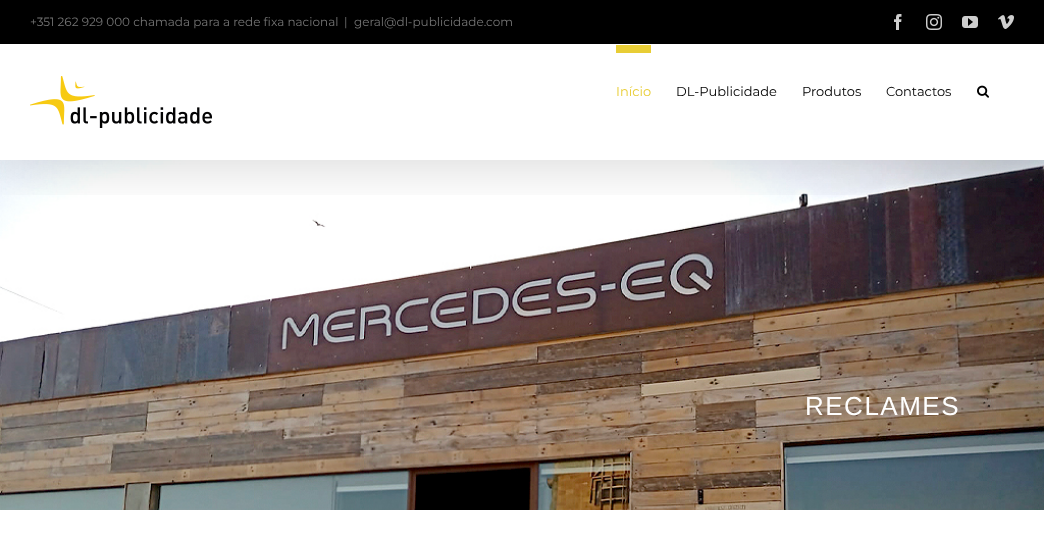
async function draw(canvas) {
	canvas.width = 1044;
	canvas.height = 549;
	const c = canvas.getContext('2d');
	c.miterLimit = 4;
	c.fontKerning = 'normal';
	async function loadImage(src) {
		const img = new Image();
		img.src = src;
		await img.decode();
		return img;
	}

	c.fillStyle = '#fff';
	c.fillRect(0, 0, 1044, 549);
	c.drawImage(await loadImage('img7.png'), 0, 160, 1044, 350);
	c.save();
	c.beginPath();
	c.rect(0, 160, 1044, 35);
	c.clip();
	c.fillStyle = '#00000024';
	c.filter = 'blur(25px)';
	c.beginPath();
	c.rect(2, 12, 1040, 156);
	c.fill();
	c.filter = 'none';
	c.restore();
	c.fillStyle = '#000';
	c.fillRect(0, 0, 1044, 44);
	c.font = '12px Montserrat';
	c.fillStyle = '#747474';
	for (const [text, x, y] of [
		['+351 262 929 000 chamada para a rede fixa nacional', 30, 26],
		['|', 344, 26],
		['geral@dl-publicidade.com', 354, 26],
	]) {
		c.fillText(text, x, y);
	}
	c.drawImage(await loadImage('img1.png'), 894, 14, 8, 16);
	c.drawImage(await loadImage('img2.png'), 926, 14, 16, 16);
	c.drawImage(await loadImage('img3.png'), 962, 16, 16, 12);
	c.drawImage(await loadImage('img4.png'), 998, 15, 16, 14);
	c.drawImage(await loadImage('img5.png'), 30, 76, 182, 52);
	c.fillStyle = '#e8cd35';
	c.fillRect(616, 45, 35, 8);
	c.font = '13px Montserrat';
	c.fillText('Início', 616, 96);
	c.fillStyle = '#000';
	for (const [text, x, y] of [
		['DL-Publicidade', 676, 96],
		['Produtos', 802, 96],
		['Contactos', 886, 96],
	]) {
		c.fillText(text, x, y);
	}
	c.drawImage(await loadImage('img6.png'), 977, 85, 12, 13);
	c.letterSpacing = '1.5px';
	c.font = '26px Liberation Sans';
	c.fillStyle = '#fff';
	c.fillText('RECLAMES', 805, 415);
}

draw(document.querySelector('canvas'));
